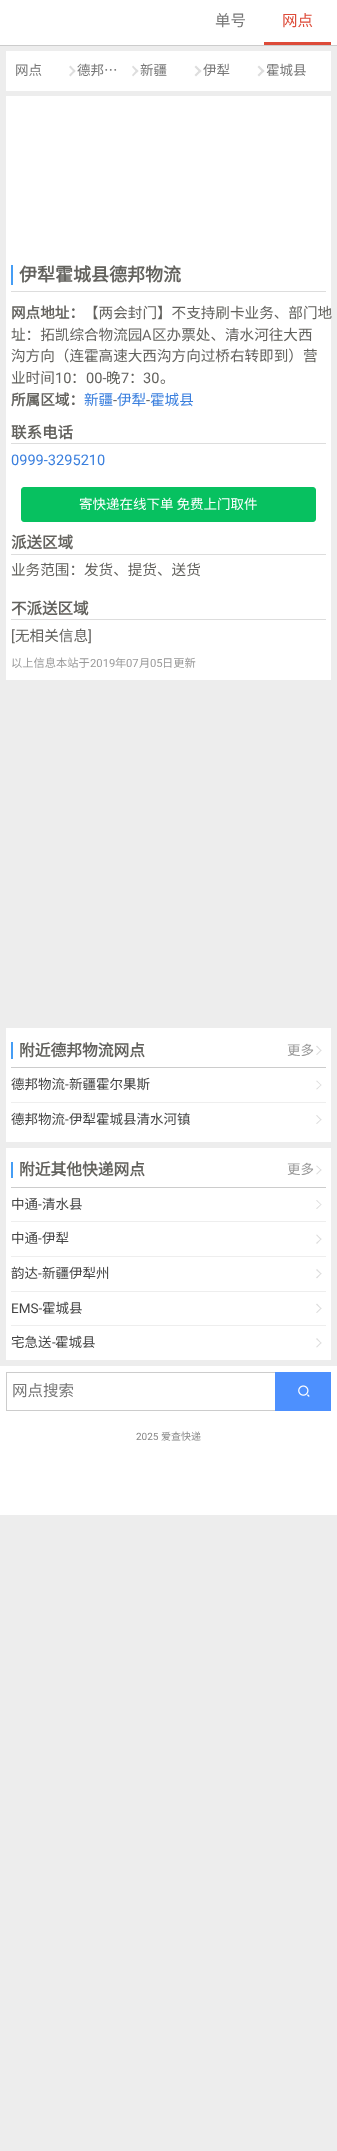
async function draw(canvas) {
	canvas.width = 337;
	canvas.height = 2151;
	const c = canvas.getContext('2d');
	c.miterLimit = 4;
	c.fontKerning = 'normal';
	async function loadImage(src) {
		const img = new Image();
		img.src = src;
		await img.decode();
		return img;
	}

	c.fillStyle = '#ededed';
	c.fillRect(0, 0, 337, 2151);
	c.fillStyle = '#fff';
	c.fillRect(0, 0, 337, 45);
	c.fillStyle = '#ccc';
	c.fillRect(0, 45, 337, 1);
	c.font = '15.5px Noto Sans CJK SC';
	c.fillStyle = '#777';
	c.fillText('单号', 215, 26);
	c.fillStyle = '#dd4b39';
	c.fillRect(264, 42, 67, 3);
	c.fillText('网点', 282, 26);
	c.fillStyle = '#fff';
	c.fillRect(6, 51, 325, 40);
	c.font = '13.5px Noto Sans CJK SC';
	c.fillStyle = '#777';
	c.fillText('网点', 15, 75);
	c.fillStyle = '#ddd';
	c.beginPath();
	c.moveTo(70.5, 65.5);
	c.lineTo(75.5, 71);
	c.lineTo(74.5, 72.5);
	c.lineTo(69, 67);
	c.closePath();
	c.fill();
	c.beginPath();
	c.moveTo(74.5, 69.5);
	c.lineTo(75.5, 71);
	c.lineTo(70.5, 76.5);
	c.lineTo(69, 75);
	c.closePath();
	c.fill();
	c.fillStyle = '#777';
	c.fillText('德邦…', 77, 75);
	c.fillStyle = '#ddd';
	c.beginPath();
	c.moveTo(133, 65.5);
	c.lineTo(138.5, 71);
	c.lineTo(137, 72.5);
	c.lineTo(132, 67);
	c.closePath();
	c.fill();
	c.beginPath();
	c.moveTo(137, 69.5);
	c.lineTo(138.5, 71);
	c.lineTo(133, 76.5);
	c.lineTo(132, 75);
	c.closePath();
	c.fill();
	c.fillStyle = '#777';
	c.fillText('新疆', 140, 75);
	c.fillStyle = '#ddd';
	c.beginPath();
	c.moveTo(196, 65.5);
	c.lineTo(201.5, 71);
	c.lineTo(200, 72.5);
	c.lineTo(194.5, 67);
	c.closePath();
	c.fill();
	c.beginPath();
	c.moveTo(200, 69.5);
	c.lineTo(201.5, 71);
	c.lineTo(196, 76.5);
	c.lineTo(194.5, 75);
	c.closePath();
	c.fill();
	c.fillStyle = '#777';
	c.fillText('伊犁', 203, 75);
	c.fillStyle = '#ddd';
	c.beginPath();
	c.moveTo(259, 65.5);
	c.lineTo(264.5, 71);
	c.lineTo(263, 72.5);
	c.lineTo(257.5, 67);
	c.closePath();
	c.fill();
	c.beginPath();
	c.moveTo(263, 69.5);
	c.lineTo(264.5, 71);
	c.lineTo(259, 76.5);
	c.lineTo(257.5, 75);
	c.closePath();
	c.fill();
	c.fillStyle = '#777';
	c.fillText('霍城县', 266, 75);
	for (const [x, y, w, h, color] of [
		[6, 96, 325, 584, '#fff'],
		[11, 291, 315, 1, '#ddd'],
		[11, 265, 2, 20, '#459df5'],
	]) {
		c.fillStyle = color;
		c.fillRect(x, y, w, h);
	}
	c.font = 'bold 18px Noto Sans CJK SC';
	c.fillStyle = '#63625e';
	c.fillText('伊犁霍城县德邦物流', 19, 281);
	c.font = 'bold 14.6px Noto Sans CJK SC';
	c.fillText('网点地址：', 11, 318);
	c.font = '14.6px Noto Sans CJK SC';
	c.fillText('【两会封门】不支持刷卡业务、部门地', 84, 318);
	c.fillText('址：拓凯综合物流园', 11, 340);
	c.font = '14.6px Roboto';
	c.fillText('A', 142, 340);
	c.font = '14.6px Noto Sans CJK SC';
	for (const [text, x, y] of [
		['区办票处、清水河往大西', 152, 340],
		['沟方向（连霍高速大西沟方向过桥右转即到）营', 11, 361],
		['业时间', 11, 383],
	]) {
		c.fillText(text, x, y);
	}
	c.font = '14.6px Roboto';
	c.fillText('10', 55, 383);
	c.font = '14.6px Noto Sans CJK SC';
	c.fillText('：', 71, 383);
	c.font = '14.6px Roboto';
	c.fillText('00-', 86, 383);
	c.font = '14.6px Noto Sans CJK SC';
	c.fillText('晚', 106, 383);
	c.font = '14.6px Roboto';
	c.fillText('7', 121, 383);
	c.font = '14.6px Noto Sans CJK SC';
	c.fillText('：', 129, 383);
	c.font = '14.6px Roboto';
	c.fillText('30', 143, 383);
	c.font = '14.6px Noto Sans CJK SC';
	c.fillText('。', 160, 383);
	c.font = 'bold 14.6px Noto Sans CJK SC';
	c.fillText('所属区域：', 11, 405);
	c.font = '14.6px Noto Sans CJK SC';
	c.fillStyle = '#3a7fde';
	c.fillText('新疆', 84, 405);
	c.font = '14.6px Roboto';
	c.fillStyle = '#63625e';
	c.fillText('-', 113, 405);
	c.font = '14.6px Noto Sans CJK SC';
	c.fillStyle = '#3a7fde';
	c.fillText('伊犁', 117, 405);
	c.font = '14.6px Roboto';
	c.fillStyle = '#63625e';
	c.fillText('-', 146, 405);
	c.font = '14.6px Noto Sans CJK SC';
	c.fillStyle = '#3a7fde';
	c.fillText('霍城县', 150, 405);
	c.fillStyle = '#ddd';
	c.fillRect(11, 443, 315, 1);
	c.font = 'bold 15.5px Noto Sans CJK SC';
	c.fillStyle = '#63625e';
	c.fillText('联系电话', 11, 438);
	c.font = '14.6px Roboto';
	c.fillStyle = '#3a7fde';
	c.fillText('0999-3295210', 11, 465);
	c.fillStyle = '#07c160';
	c.beginPath();
	c.roundRect(21.5, 487.5, 294, 34, 2.5);
	c.fill();
	c.strokeStyle = '#07c160';
	c.stroke();
	c.font = '13.5px Noto Sans CJK SC';
	c.fillStyle = '#fff';
	c.fillText('寄快递在线下单 免费上门取件', 79, 509);
	c.fillStyle = '#ddd';
	c.fillRect(11, 554, 315, 1);
	c.font = 'bold 15.5px Noto Sans CJK SC';
	c.fillStyle = '#63625e';
	c.fillText('派送区域', 11, 548);
	c.font = '14.6px Noto Sans CJK SC';
	c.fillText('业务范围：发货、提货、送货', 11, 575);
	c.fillStyle = '#ddd';
	c.fillRect(11, 619, 315, 1);
	c.font = 'bold 15.5px Noto Sans CJK SC';
	c.fillStyle = '#63625e';
	c.fillText('不派送区域', 11, 614);
	c.font = '14.6px Roboto';
	c.fillText('[', 11, 641);
	c.font = '14.6px Noto Sans CJK SC';
	c.fillText('无相关信息', 15, 641);
	c.font = '14.6px Roboto';
	c.fillText(']', 88, 641);
	c.font = '11.25px Noto Sans CJK SC';
	c.fillStyle = '#999';
	c.fillText('以上信息本站于', 11, 667);
	c.font = '11.25px Roboto';
	c.fillText('2019', 90, 667);
	c.font = '11.25px Noto Sans CJK SC';
	c.fillText('年', 115, 667);
	c.font = '11.25px Roboto';
	c.fillText('07', 126, 667);
	c.font = '11.25px Noto Sans CJK SC';
	c.fillText('月', 139, 667);
	c.font = '11.25px Roboto';
	c.fillText('05', 150, 667);
	c.font = '11.25px Noto Sans CJK SC';
	c.fillText('日更新', 162, 667);
	for (const [x, y, w, h, color] of [
		[6, 1028, 325, 114, '#fff'],
		[11, 1067, 315, 1, '#ccc'],
		[11, 1042, 2, 17, '#459df5'],
	]) {
		c.fillStyle = color;
		c.fillRect(x, y, w, h);
	}
	c.font = 'bold 15.75px Noto Sans CJK SC';
	c.fillStyle = '#63625e';
	c.fillText('附近德邦物流网点', 19, 1056);
	c.font = '13.5px Noto Sans CJK SC';
	c.fillStyle = '#999';
	c.fillText('更多', 287, 1055);
	c.fillStyle = '#ddd';
	c.beginPath();
	c.moveTo(317, 1045.5);
	c.lineTo(321.5, 1050.5);
	c.lineTo(321, 1051);
	c.lineTo(316, 1046.5);
	c.closePath();
	c.fill();
	c.beginPath();
	c.moveTo(321, 1049.5);
	c.lineTo(321.5, 1050.5);
	c.lineTo(317, 1055);
	c.lineTo(316, 1054.5);
	c.closePath();
	c.moveTo(317, 1080.5);
	c.lineTo(321.5, 1085);
	c.lineTo(321, 1085.5);
	c.lineTo(316, 1081);
	c.closePath();
	c.fill();
	c.fillStyle = '#444';
	c.fillText('德邦物流', 11, 1089);
	c.font = '13.5px Roboto';
	c.fillText('-', 65, 1089);
	c.font = '13.5px Noto Sans CJK SC';
	c.fillText('新疆霍尔果斯', 69, 1089);
	c.fillStyle = '#eee';
	c.fillRect(11, 1102, 315, 1);
	c.fillStyle = '#ddd';
	c.beginPath();
	c.moveTo(321, 1084.5);
	c.lineTo(321.5, 1085);
	c.lineTo(317, 1089.5);
	c.lineTo(316, 1089);
	c.closePath();
	c.moveTo(317, 1115);
	c.lineTo(321.5, 1119.5);
	c.lineTo(321, 1120.5);
	c.lineTo(316, 1115.5);
	c.closePath();
	c.fill();
	c.fillStyle = '#444';
	c.fillText('德邦物流', 11, 1124);
	c.font = '13.5px Roboto';
	c.fillText('-', 65, 1124);
	c.font = '13.5px Noto Sans CJK SC';
	c.fillText('伊犁霍城县清水河镇', 69, 1124);
	c.fillStyle = '#fff';
	c.fillRect(6, 1148, 325, 212);
	c.fillStyle = '#ddd';
	c.beginPath();
	c.moveTo(321, 1119);
	c.lineTo(321.5, 1119.5);
	c.lineTo(317, 1124);
	c.lineTo(316, 1123.5);
	c.closePath();
	c.moveTo(317, 1165.5);
	c.lineTo(321.5, 1170);
	c.lineTo(321, 1170.5);
	c.lineTo(316, 1166);
	c.closePath();
	c.fill();
	c.fillStyle = '#ccc';
	c.fillRect(11, 1187, 315, 1);
	c.fillStyle = '#459df5';
	c.fillRect(11, 1162, 2, 16);
	c.font = 'bold 15.75px Noto Sans CJK SC';
	c.fillStyle = '#63625e';
	c.fillText('附近其他快递网点', 19, 1175);
	c.font = '13.5px Noto Sans CJK SC';
	c.fillStyle = '#999';
	c.fillText('更多', 287, 1174);
	c.fillStyle = '#ddd';
	c.beginPath();
	c.moveTo(321, 1169);
	c.lineTo(321.5, 1170);
	c.lineTo(317, 1174.5);
	c.lineTo(316, 1174);
	c.closePath();
	c.moveTo(317, 1200);
	c.lineTo(321.5, 1204.5);
	c.lineTo(321, 1205);
	c.lineTo(316, 1200.5);
	c.closePath();
	c.fill();
	c.fillStyle = '#444';
	c.fillText('中通', 11, 1209);
	c.font = '13.5px Roboto';
	c.fillText('-', 38, 1209);
	c.font = '13.5px Noto Sans CJK SC';
	c.fillText('清水县', 42, 1209);
	c.fillStyle = '#eee';
	c.fillRect(11, 1221, 315, 1);
	c.fillStyle = '#ddd';
	c.beginPath();
	c.moveTo(321, 1204);
	c.lineTo(321.5, 1204.5);
	c.lineTo(317, 1209);
	c.lineTo(316, 1208.5);
	c.closePath();
	c.moveTo(317, 1234.5);
	c.lineTo(321.5, 1239);
	c.lineTo(321, 1240);
	c.lineTo(316, 1235);
	c.closePath();
	c.fill();
	c.fillStyle = '#444';
	c.fillText('中通', 11, 1243);
	c.font = '13.5px Roboto';
	c.fillText('-', 38, 1243);
	c.font = '13.5px Noto Sans CJK SC';
	c.fillText('伊犁', 42, 1243);
	c.fillStyle = '#eee';
	c.fillRect(11, 1256, 315, 1);
	c.fillStyle = '#ddd';
	c.beginPath();
	c.moveTo(321, 1238.5);
	c.lineTo(321.5, 1239);
	c.lineTo(317, 1244);
	c.lineTo(316, 1243);
	c.closePath();
	c.moveTo(317, 1269);
	c.lineTo(321.5, 1273.5);
	c.lineTo(321, 1274.5);
	c.lineTo(316, 1270);
	c.closePath();
	c.fill();
	c.fillStyle = '#444';
	c.fillText('韵达', 11, 1278);
	c.font = '13.5px Roboto';
	c.fillText('-', 38, 1278);
	c.font = '13.5px Noto Sans CJK SC';
	c.fillText('新疆伊犁州', 42, 1278);
	c.fillStyle = '#eee';
	c.fillRect(11, 1291, 315, 1);
	c.fillStyle = '#ddd';
	c.beginPath();
	c.moveTo(321, 1273);
	c.lineTo(321.5, 1273.5);
	c.lineTo(317, 1278.5);
	c.lineTo(316, 1277.5);
	c.closePath();
	c.moveTo(317, 1303.5);
	c.lineTo(321.5, 1308.5);
	c.lineTo(321, 1309);
	c.lineTo(316, 1304.5);
	c.closePath();
	c.fill();
	c.font = '13.5px Roboto';
	c.fillStyle = '#444';
	c.fillText('EMS-', 11, 1313);
	c.font = '13.5px Noto Sans CJK SC';
	c.fillText('霍城县', 42, 1313);
	c.fillStyle = '#eee';
	c.fillRect(11, 1325, 315, 1);
	c.fillStyle = '#ddd';
	c.beginPath();
	c.moveTo(321, 1307.5);
	c.lineTo(321.5, 1308.5);
	c.lineTo(317, 1313);
	c.lineTo(316, 1312.5);
	c.closePath();
	c.moveTo(317, 1338);
	c.lineTo(321.5, 1343);
	c.lineTo(321, 1343.5);
	c.lineTo(316, 1339);
	c.closePath();
	c.fill();
	c.fillStyle = '#444';
	c.fillText('宅急送', 11, 1347);
	c.font = '13.5px Roboto';
	c.fillText('-', 52, 1347);
	c.font = '13.5px Noto Sans CJK SC';
	c.fillText('霍城县', 55, 1347);
	c.fillStyle = '#ddd';
	c.beginPath();
	c.moveTo(321, 1342);
	c.lineTo(321.5, 1343);
	c.lineTo(317, 1347.5);
	c.lineTo(316, 1347);
	c.closePath();
	c.fill();
	for (const [x, y, w, h, color] of [
		[0, 1366, 337, 149, '#fff'],
		[6, 1372, 269, 1, '#ccc'],
		[6, 1410, 269, 1, '#ccc'],
		[6, 1372, 1, 39, '#ccc'],
	]) {
		c.fillStyle = color;
		c.fillRect(x, y, w, h);
	}
	c.font = '15.5px Noto Sans CJK SC';
	c.fillStyle = '#777';
	c.fillText('网点搜索', 12, 1396);
	c.fillStyle = '#4d90fe';
	c.fillRect(275, 1372, 56, 39);
	c.drawImage(await loadImage('img1.png'), 298, 1385, 12, 12);
	c.font = '10px Roboto';
	c.fillStyle = '#888';
	c.fillText('2025', 136, 1440);
	c.font = '10px Noto Sans CJK SC';
	c.fillText('爱查快递', 161, 1440);
}

draw(document.querySelector('canvas'));
